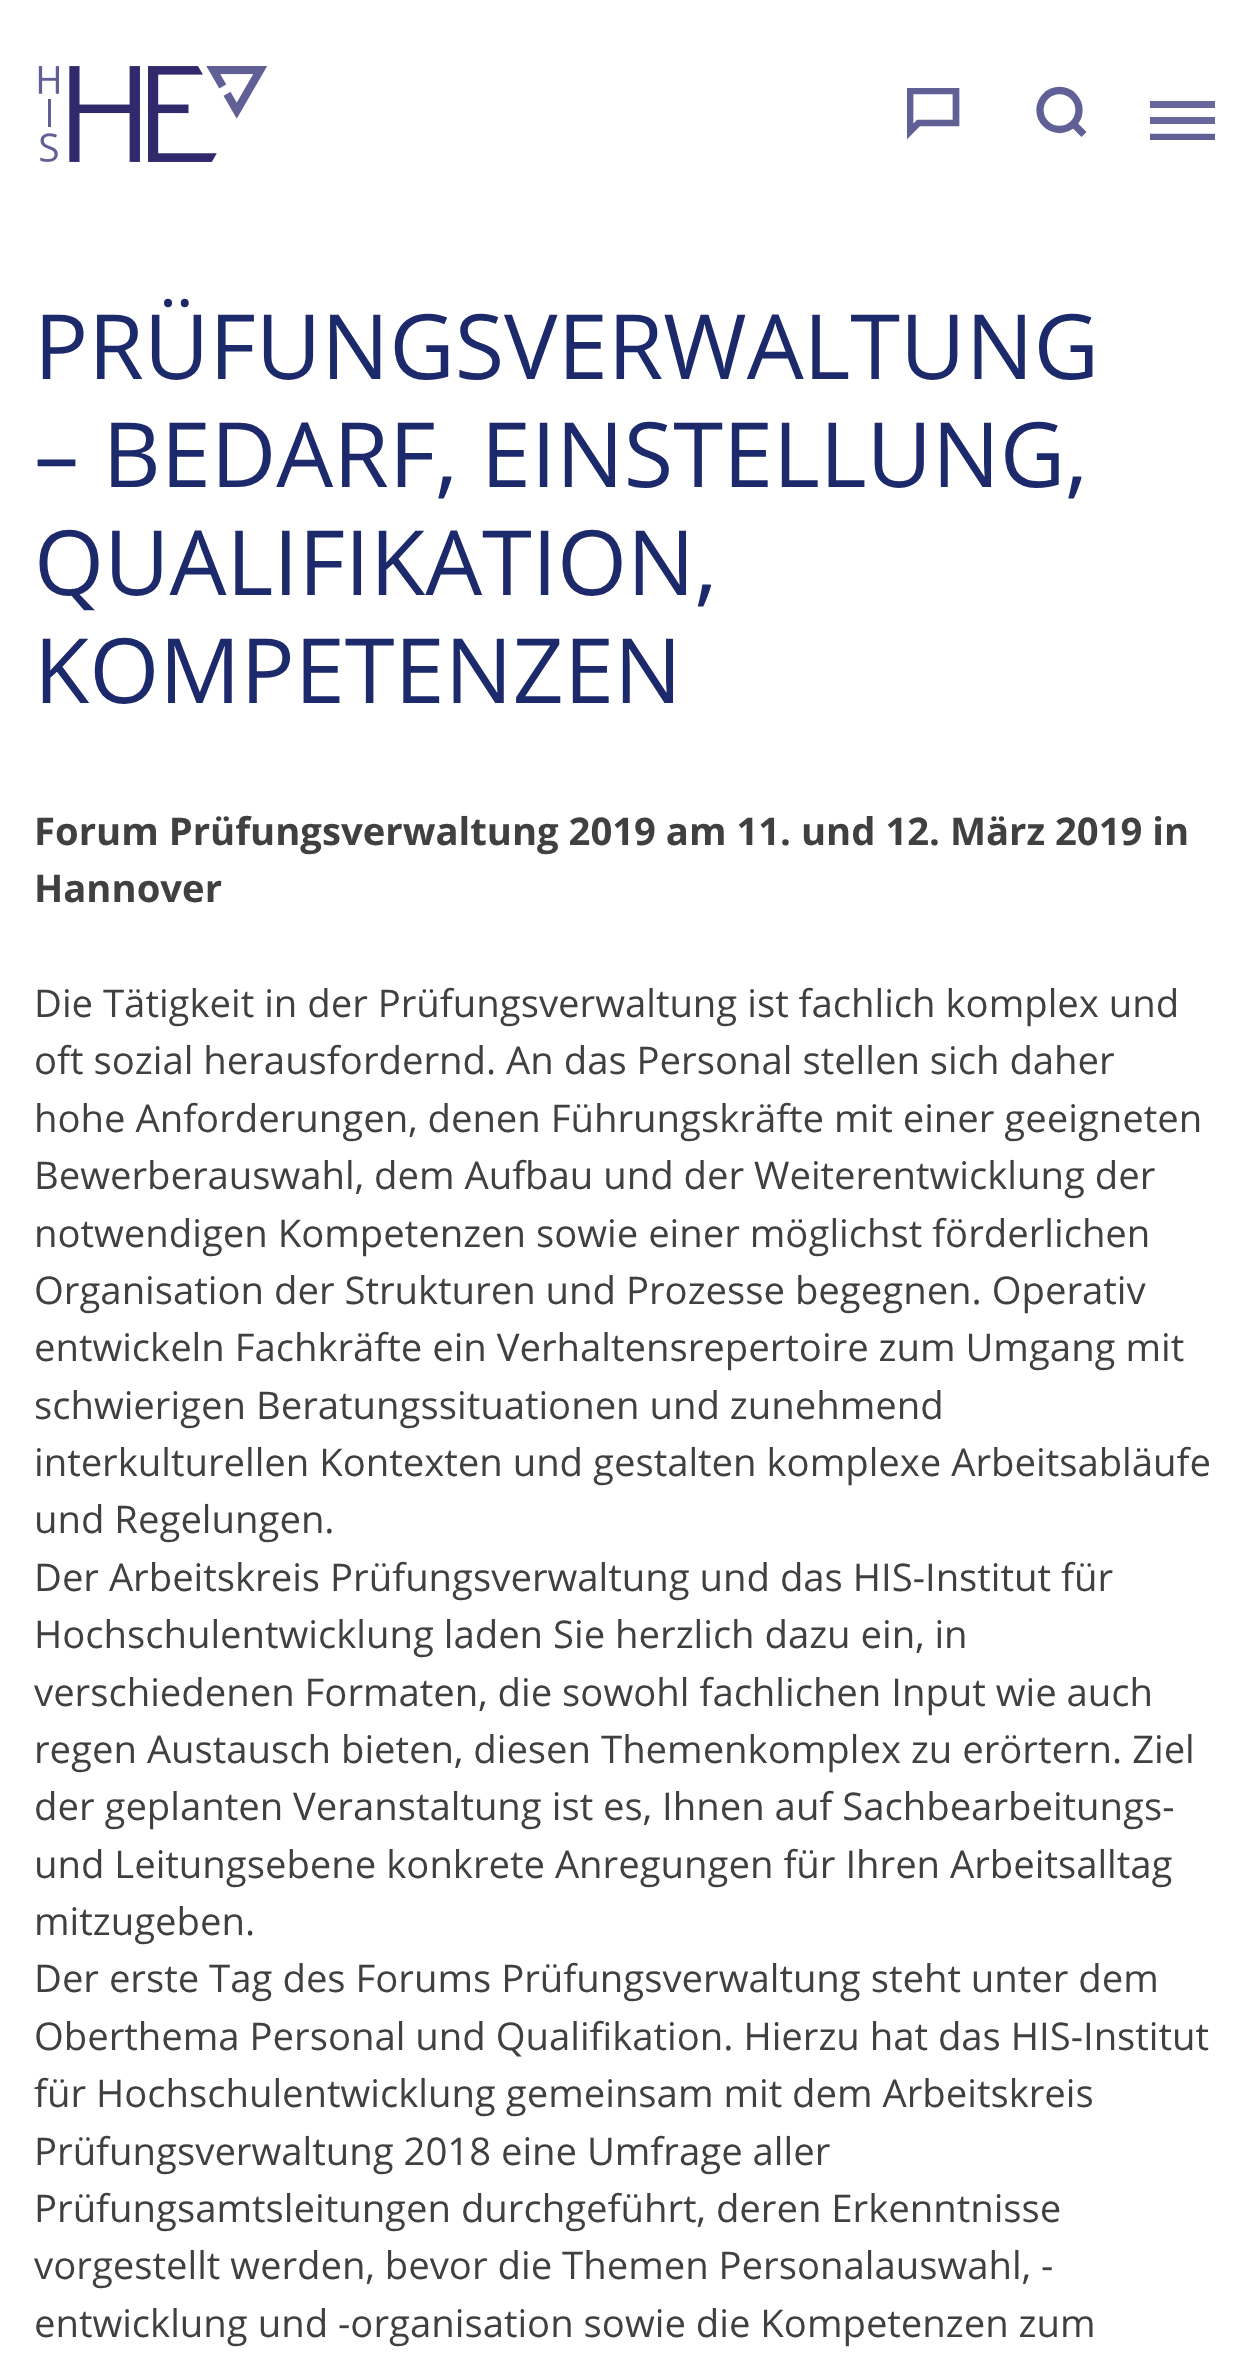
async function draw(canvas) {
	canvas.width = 1247;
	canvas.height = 2354;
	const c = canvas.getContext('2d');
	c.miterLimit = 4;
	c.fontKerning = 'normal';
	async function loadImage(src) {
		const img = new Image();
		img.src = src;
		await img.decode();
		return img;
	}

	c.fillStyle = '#fff';
	c.fillRect(0, 0, 1247, 2354);
	c.drawImage(await loadImage('img1.png'), 38, 66, 230, 96);
	c.save();
	c.beginPath();
	c.rect(907, 88, 54, 52);
	c.clip();
	c.beginPath();
	c.moveTo(956, 91);
	c.lineTo(910, 91);
	c.lineTo(910, 131.5);
	c.lineTo(918.5, 123);
	c.lineTo(956, 123);
	c.closePath();
	c.strokeStyle = '#616096';
	c.lineWidth = 6.7;
	c.stroke();
	c.restore();
	c.beginPath();
	c.arc(1059.5, 110, 19.5, 0, 2 * Math.PI);
	c.strokeStyle = '#616096';
	c.lineWidth = 7.3;
	c.stroke();
	c.beginPath();
	c.moveTo(1084, 134.5);
	c.lineTo(1073.5, 124);
	c.stroke();
	c.fillStyle = '#68679b';
	c.fillRect(1150, 101, 65, 7);
	c.fillRect(1150, 117, 65, 7);
	c.save();
	c.beginPath();
	c.rect(1150, 101, 65, 39);
	c.clip();
	c.beginPath();
	c.moveTo(1150, 137);
	c.lineTo(1216, 137);
	c.lineWidth = 6.7;
	c.stroke();
	c.restore();
	c.font = '90px Open Sans';
	c.fillStyle = '#1c296b';
	for (const [text, x, y] of [
		['PRÜFUNGSVERWALTUNG', 34, 379],
		['– BEDARF, EINSTELLUNG,', 34, 487],
		['QUALIFIKATION,', 34, 595],
		['KOMPETENZEN', 34, 703],
	]) {
		c.fillText(text, x, y);
	}
	c.font = 'bold 38.25px Open Sans';
	c.fillStyle = '#404040';
	c.fillText('Forum Prüfungsverwaltung 2019 am 11. und 12. März 2019 in', 34, 845);
	c.fillText('Hannover', 34, 902);
	c.font = '38.25px Open Sans';
	for (const [text, x, y] of [
		['Die Tätigkeit in der Prüfungsverwaltung ist fachlich komplex und', 34, 1017],
		['oft sozial herausfordernd. An das Personal stellen sich daher', 34, 1074],
		['hohe Anforderungen, denen Führungskräfte mit einer geeigneten', 34, 1132],
		['Bewerberauswahl, dem Aufbau und der Weiterentwicklung der', 34, 1189],
		['notwendigen Kompetenzen sowie einer möglichst förderlichen', 34, 1247],
		['Organisation der Strukturen und Prozesse begegnen. Operativ', 34, 1304],
		['entwickeln Fachkräfte ein Verhaltensrepertoire zum Umgang mit', 34, 1361],
		['schwierigen Beratungssituationen und zunehmend', 34, 1419],
		['interkulturellen Kontexten und gestalten komplexe Arbeitsabläufe', 34, 1476],
		['und Regelungen.', 34, 1533],
		['Der Arbeitskreis Prüfungsverwaltung und das HIS-Institut für', 34, 1591],
		['Hochschulentwicklung laden Sie herzlich dazu ein, in', 34, 1648],
		['verschiedenen Formaten, die sowohl fachlichen Input wie auch', 34, 1706],
		['regen Austausch bieten, diesen Themenkomplex zu erörtern. Ziel', 34, 1763],
		['der geplanten Veranstaltung ist es, Ihnen auf Sachbearbeitungs-', 34, 1820],
		['und Leitungsebene konkrete Anregungen für Ihren Arbeitsalltag', 34, 1878],
		['mitzugeben.', 34, 1935],
		['Der erste Tag des Forums Prüfungsverwaltung steht unter dem', 34, 1992],
		['Oberthema Personal und Qualifikation. Hierzu hat das HIS-Institut', 34, 2050],
		['für Hochschulentwicklung gemeinsam mit dem Arbeitskreis', 34, 2107],
		['Prüfungsverwaltung 2018 eine Umfrage aller', 34, 2165],
		['Prüfungsamtsleitungen durchgeführt, deren Erkenntnisse', 34, 2222],
		['vorgestellt werden, bevor die Themen Personalauswahl, -', 34, 2279],
		['entwicklung und -organisation sowie die Kompetenzen zum', 34, 2337],
	]) {
		c.fillText(text, x, y);
	}
}

draw(document.querySelector('canvas'));
